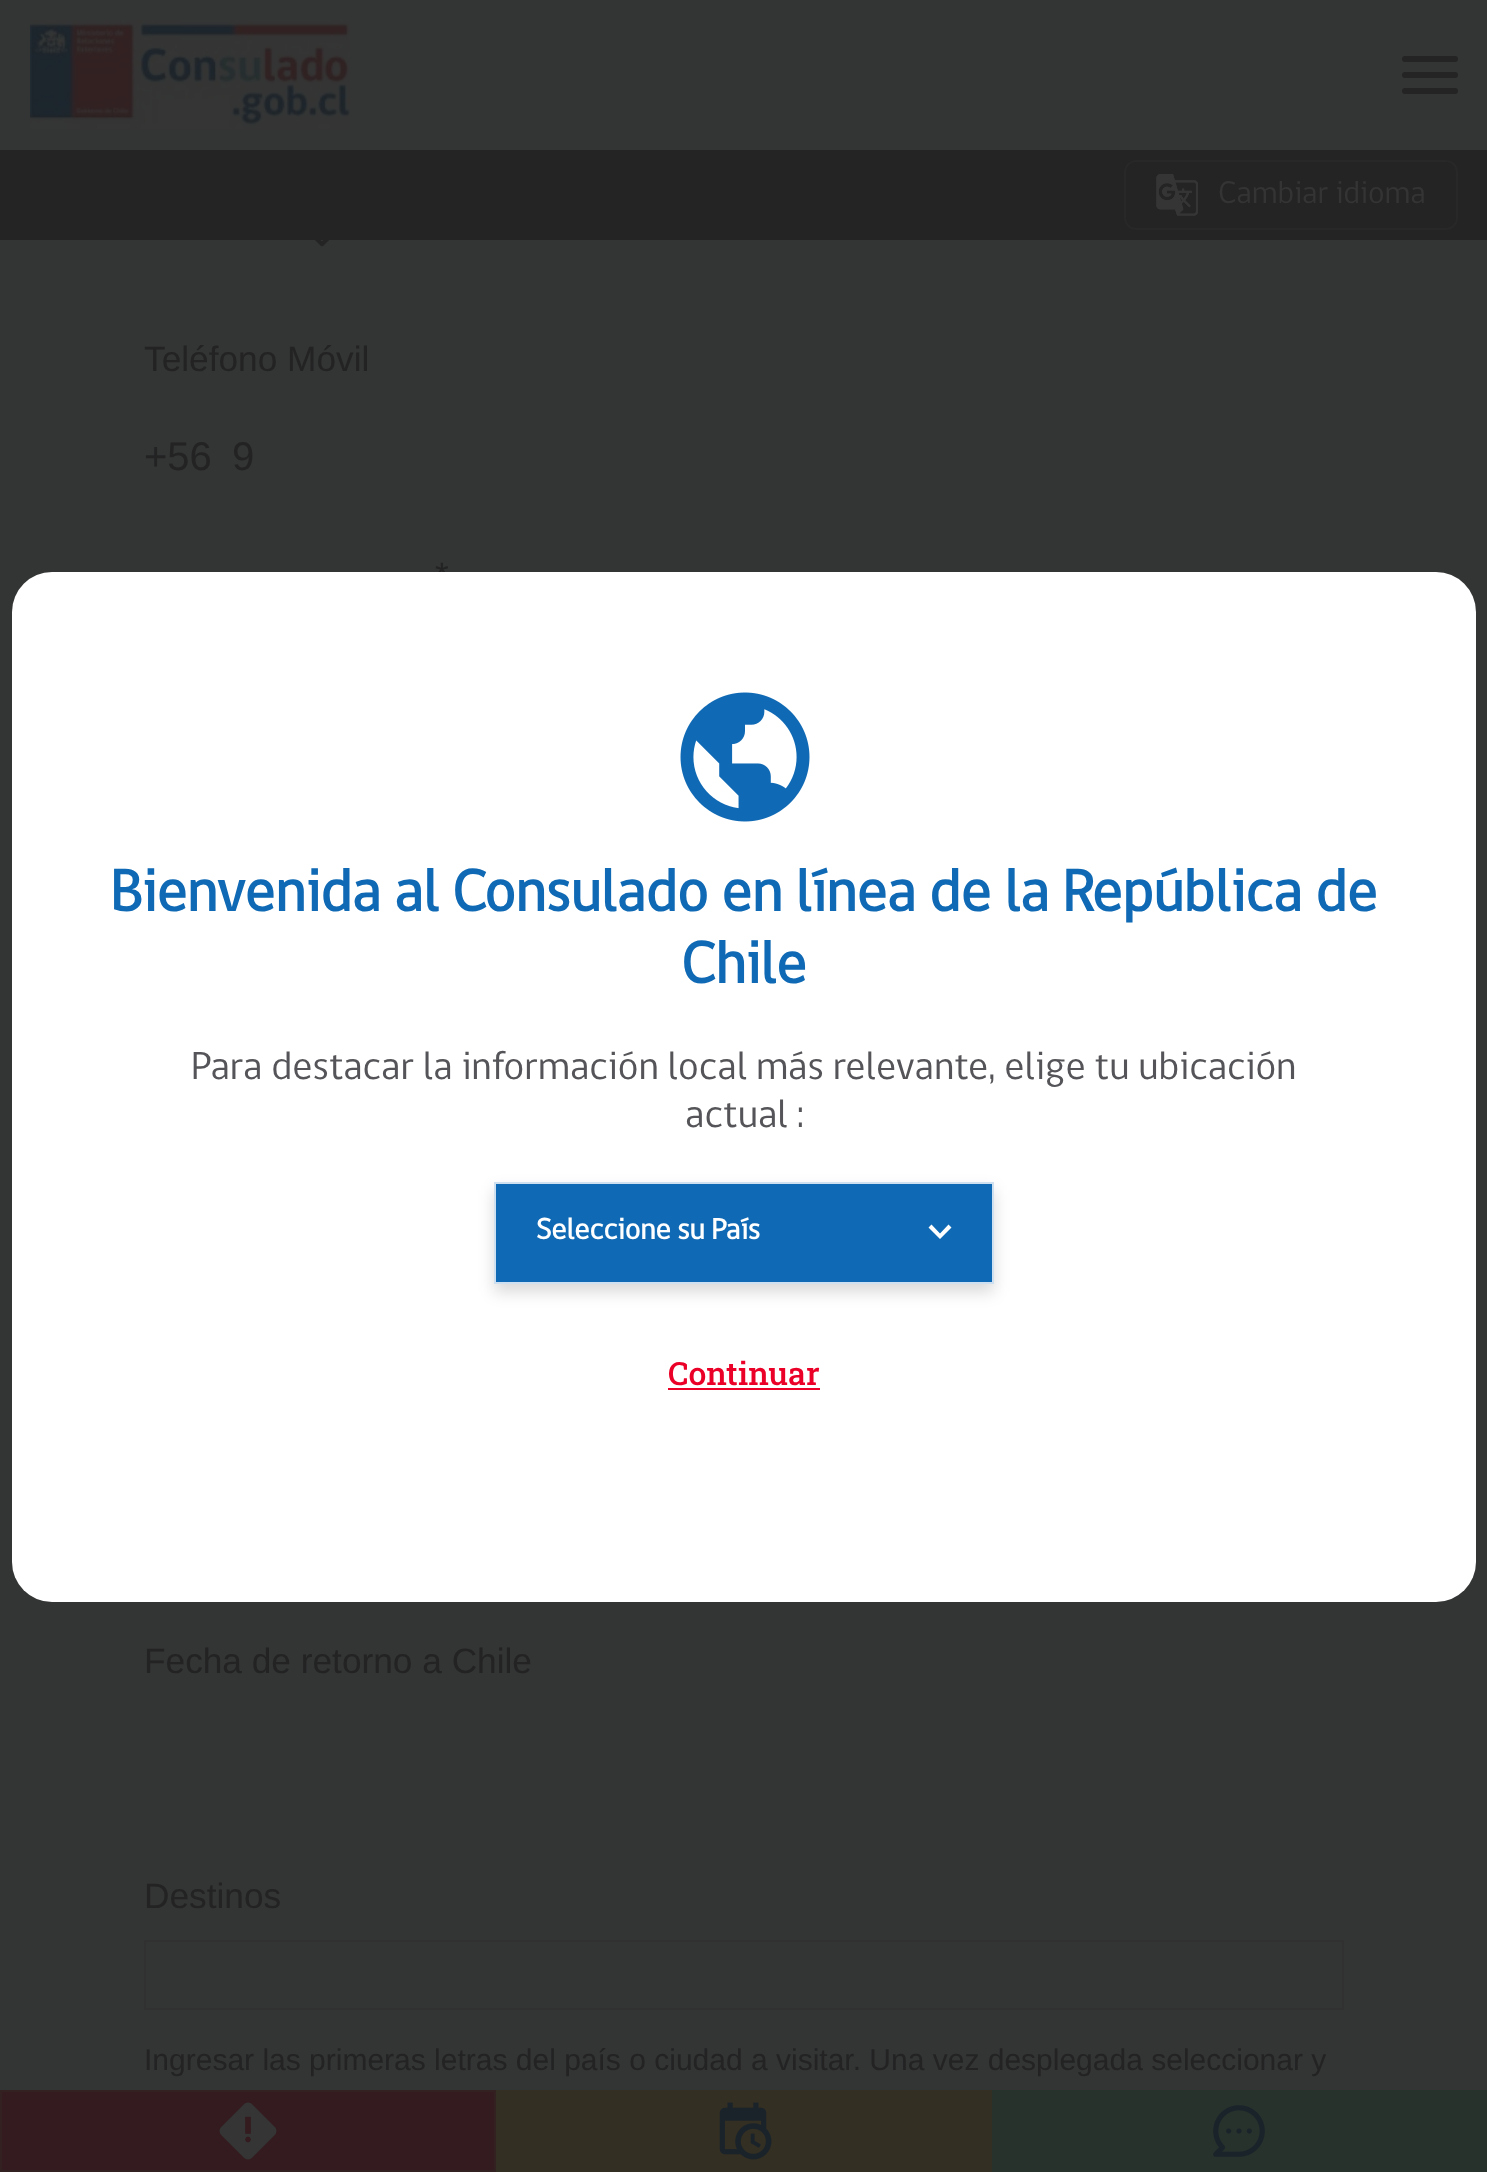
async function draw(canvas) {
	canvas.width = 1487;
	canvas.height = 2172;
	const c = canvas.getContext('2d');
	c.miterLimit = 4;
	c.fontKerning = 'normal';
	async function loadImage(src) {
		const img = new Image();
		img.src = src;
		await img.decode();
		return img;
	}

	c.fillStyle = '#333434';
	c.fillRect(0, 0, 1487, 2172);
	c.drawImage(await loadImage('img1.png'), 30, 20, 320, 110);
	c.fillStyle = '#242424';
	c.beginPath();
	c.roundRect(1402, 72, 56, 6, 3);
	c.fill();
	c.beginPath();
	c.roundRect(1402, 56, 56, 6, 3);
	c.fill();
	c.beginPath();
	c.roundRect(1402, 88, 56, 6, 3);
	c.fill();
	c.fillRect(0, 150, 1487, 90);
	c.beginPath();
	c.roundRect(1125, 161, 332, 68, 11);
	c.strokeStyle = '#282828';
	c.lineWidth = 2;
	c.stroke();
	c.drawImage(await loadImage('img2.png'), 1156, 174, 42, 42);
	c.drawImage(await loadImage('img3.png'), 1156, 174, 42, 42);
	c.font = '32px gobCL';
	c.fillStyle = '#343434';
	c.fillText('Cambiar idioma', 1218, 203);
	c.drawImage(await loadImage('img4.png'), 315, 240, 14, 7);
	c.font = '35.25px Liberation Sans';
	c.fillStyle = '#232324';
	c.fillText('Teléfono Móvil', 144, 371);
	c.font = '40px Liberation Sans';
	c.fillText('+56', 144, 470);
	c.fillText('9', 232, 470);
	c.font = '35.25px Liberation Sans';
	for (const [text, x, y] of [
		['*', 435, 587],
		['Fecha de retorno a Chile', 144, 1673],
		['Destinos', 144, 1908],
	]) {
		c.fillText(text, x, y);
	}
	c.strokeStyle = '#313131';
	c.strokeRect(145, 1941, 1198, 68);
	c.font = '30px Liberation Sans';
	c.fillText('Ingresar las primeras letras del país o ciudad a visitar. Una vez desplegada seleccionar y', 144, 2070);
	c.fillStyle = '#fff';
	c.beginPath();
	c.roundRect(12, 572, 1464, 1030, 40);
	c.fill();
	c.drawImage(await loadImage('img5.png'), 680, 692, 130, 130);
	c.font = 'bold 60px gobCL';
	c.fillStyle = '#0f69b4';
	c.fillText('Bienvenida al Consulado en línea de la República de', 110, 911);
	c.fillText('Chile', 681, 983);
	c.font = '40px gobCL';
	c.fillStyle = '#555559';
	c.fillText('Para destacar la información local más relevante, elige tu ubicación', 191, 1079);
	c.fillText('actual :', 685, 1127);
	c.fillStyle = '#00000026';
	c.filter = 'blur(8px)';
	c.beginPath();
	c.rect(494, 1190, 500, 102);
	c.fill();
	c.filter = 'none';
	c.fillStyle = '#0f69b4';
	c.fillRect(496, 1184, 496, 98);
	c.fillStyle = '#fff';
	c.beginPath();
	c.moveTo(951.5, 1227.5);
	c.lineTo(940, 1239);
	c.lineTo(928.5, 1227.5);
	c.lineTo(931.5, 1224.5);
	c.lineTo(940, 1233.5);
	c.lineTo(948.5, 1224.5);
	c.closePath();
	c.fill();
	c.strokeStyle = '#cfe1f0';
	c.strokeRect(495, 1183, 498, 100);
	c.font = 'bold 30px gobCL';
	c.fillText('Seleccione su País', 536, 1239);
	c.font = '500 32px Roboto Slab';
	c.fillStyle = '#eb0028';
	c.fillText('Continuar', 668, 1385);
	c.fillRect(668, 1388, 152, 2);
	c.fillStyle = '#331b1f';
	c.beginPath();
	c.rect(1, 2091, 494, 80);
	c.fill();
	c.strokeStyle = '#332122';
	c.stroke();
	c.drawImage(await loadImage('img6.png'), 219, 2102, 58, 58);
	c.fillStyle = '#332f22';
	c.fillRect(496, 2090, 496, 82);
	c.drawImage(await loadImage('img7.png'), 719, 2102, 53, 58);
	c.fillStyle = '#27322c';
	c.fillRect(992, 2090, 495, 82);
	c.drawImage(await loadImage('img8.png'), 1213, 2105, 52, 52);
}

draw(document.querySelector('canvas'));
